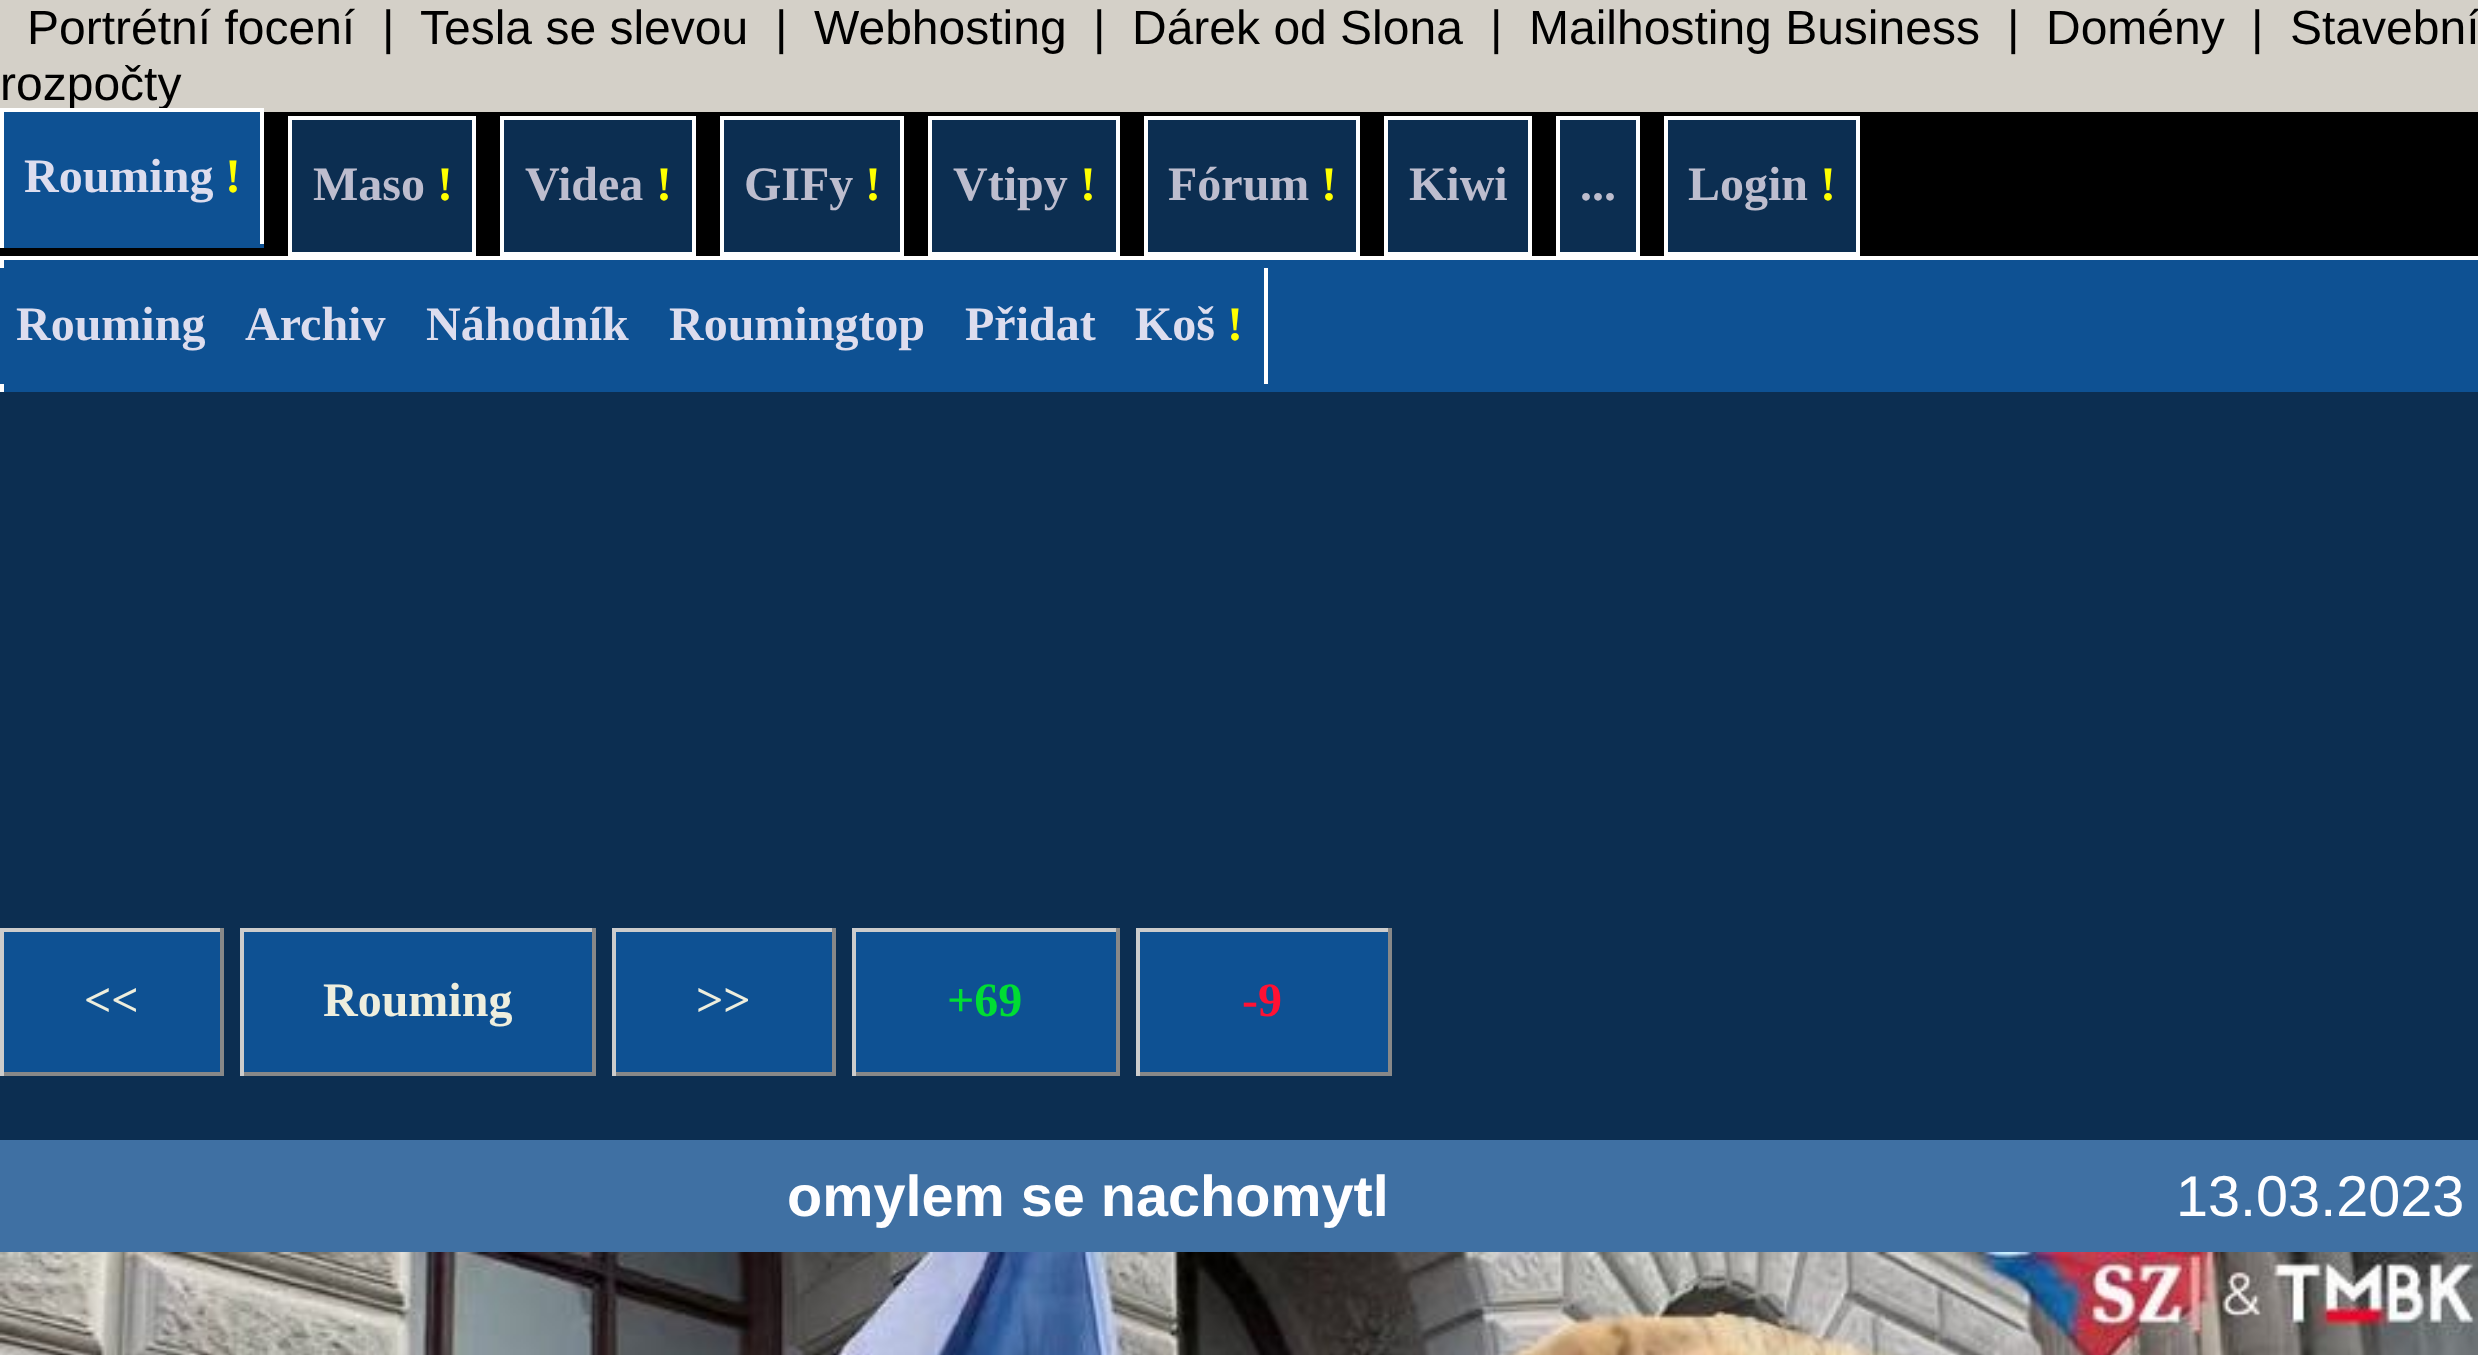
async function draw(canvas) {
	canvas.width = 2478;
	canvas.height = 1355;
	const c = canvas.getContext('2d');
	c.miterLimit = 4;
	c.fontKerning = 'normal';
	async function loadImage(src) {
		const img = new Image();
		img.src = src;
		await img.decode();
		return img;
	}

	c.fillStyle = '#0c2e51';
	c.fillRect(0, 0, 2478, 1355);
	c.fillStyle = '#d4d0c8';
	c.fillRect(0, 0, 2478, 112);
	c.font = '48px Liberation Sans';
	c.fillStyle = '#000';
	for (const [text, x, y] of [
		['Portrétní focení', 27, 44],
		['|', 382, 44],
		['Tesla se slevou', 420, 44],
		['|', 775, 44],
		['Webhosting', 814, 44],
		['|', 1093, 44],
		['Dárek od Slona', 1132, 44],
		['|', 1490, 44],
		['Mailhosting Business', 1529, 44],
		['|', 2007, 44],
		['Domény', 2046, 44],
		['|', 2251, 44],
		['Stavební', 2290, 44],
		['rozpočty', 0, 100],
	]) {
		c.fillText(text, x, y);
	}
	for (const [x, y, w, h, color] of [
		[0, 112, 2478, 144, '#000'],
		[0, 256, 2478, 4, '#fff'],
		[4, 112, 256, 132, '#0e5193'],
		[0, 108, 264, 4, '#fff'],
		[260, 108, 4, 140, '#fff'],
		[0, 244, 264, 4, '#0e5193'],
		[0, 108, 4, 140, '#fff'],
	]) {
		c.fillStyle = color;
		c.fillRect(x, y, w, h);
	}
	c.font = 'bold 48px Liberation Serif';
	c.fillStyle = '#dde';
	c.fillText('Rouming', 24, 192);
	c.fillStyle = '#ff0';
	c.fillText('!', 225, 192);
	c.fillStyle = '#0c2e51';
	c.beginPath();
	c.rect(290, 118, 184, 136);
	c.fill();
	c.strokeStyle = '#fff';
	c.lineWidth = 4;
	c.stroke();
	c.fillStyle = '#bdbdce';
	c.fillText('Maso', 313, 200);
	c.fillStyle = '#ff0';
	c.fillText('!', 437, 200);
	c.fillStyle = '#0c2e51';
	c.beginPath();
	c.rect(502, 118, 192, 136);
	c.fill();
	c.stroke();
	c.fillStyle = '#bdbdce';
	c.fillText('Videa', 525, 200);
	c.fillStyle = '#ff0';
	c.fillText('!', 656, 200);
	c.fillStyle = '#0c2e51';
	c.beginPath();
	c.rect(722, 118, 180, 136);
	c.fill();
	c.stroke();
	c.fillStyle = '#bdbdce';
	c.fillText('GIFy', 744, 200);
	c.fillStyle = '#ff0';
	c.fillText('!', 865, 200);
	c.fillStyle = '#0c2e51';
	c.beginPath();
	c.rect(930, 118, 188, 136);
	c.fill();
	c.stroke();
	c.fillStyle = '#bdbdce';
	c.fillText('Vtipy', 953, 200);
	c.fillStyle = '#ff0';
	c.fillText('!', 1080, 200);
	c.fillStyle = '#0c2e51';
	c.beginPath();
	c.rect(1146, 118, 212, 136);
	c.fill();
	c.stroke();
	c.fillStyle = '#bdbdce';
	c.fillText('Fórum', 1168, 200);
	c.fillStyle = '#ff0';
	c.fillText('!', 1321, 200);
	c.fillStyle = '#0c2e51';
	c.beginPath();
	c.rect(1386, 118, 144, 136);
	c.fill();
	c.stroke();
	c.fillStyle = '#bdbdce';
	c.fillText('Kiwi', 1409, 200);
	c.fillStyle = '#0c2e51';
	c.beginPath();
	c.rect(1558, 118, 80, 136);
	c.fill();
	c.stroke();
	c.fillStyle = '#bdbdce';
	c.fillText('...', 1580, 200);
	c.fillStyle = '#0c2e51';
	c.beginPath();
	c.rect(1666, 118, 192, 136);
	c.fill();
	c.stroke();
	c.fillStyle = '#bdbdce';
	c.fillText('Login', 1688, 200);
	c.fillStyle = '#ff0';
	c.fillText('!', 1820, 200);
	for (const [x, y, w, h, color] of [
		[4, 260, 2474, 132, '#0e5193'],
		[0, 260, 4, 132, '#fff'],
		[0, 268, 4, 116, '#0e5193'],
	]) {
		c.fillStyle = color;
		c.fillRect(x, y, w, h);
	}
	c.fillStyle = '#dde';
	for (const [text, x, y] of [
		['Rouming', 16, 340],
		['Archiv', 245, 340],
		['Náhodník', 426, 340],
		['Roumingtop', 669, 340],
		['Přidat', 965, 340],
	]) {
		c.fillText(text, x, y);
	}
	c.fillStyle = '#fff';
	c.fillRect(1264, 268, 4, 116);
	c.fillStyle = '#dde';
	c.fillText('Koš', 1135, 340);
	c.fillStyle = '#ff0';
	c.fillText('!', 1227, 340);
	for (const [x, y, w, h, color] of [
		[4, 932, 216, 140, '#0e5193'],
		[0, 928, 224, 4, '#ccc'],
		[220, 928, 4, 148, '#888'],
		[0, 1072, 224, 4, '#888'],
		[0, 928, 4, 148, '#ccc'],
	]) {
		c.fillStyle = color;
		c.fillRect(x, y, w, h);
	}
	c.fillStyle = '#eed';
	c.fillText('<<', 84, 1016);
	for (const [x, y, w, h, color] of [
		[244, 932, 348, 140, '#0e5193'],
		[240, 928, 356, 4, '#ccc'],
		[592, 928, 4, 148, '#888'],
		[240, 1072, 356, 4, '#888'],
		[240, 928, 4, 148, '#ccc'],
	]) {
		c.fillStyle = color;
		c.fillRect(x, y, w, h);
	}
	c.fillStyle = '#eed';
	c.fillText('Rouming', 323, 1016);
	for (const [x, y, w, h, color] of [
		[616, 932, 216, 140, '#0e5193'],
		[612, 928, 224, 4, '#ccc'],
		[832, 928, 4, 148, '#888'],
		[612, 1072, 224, 4, '#888'],
		[612, 928, 4, 148, '#ccc'],
	]) {
		c.fillStyle = color;
		c.fillRect(x, y, w, h);
	}
	c.fillStyle = '#eed';
	c.fillText('>>', 696, 1016);
	for (const [x, y, w, h, color] of [
		[856, 932, 260, 140, '#0e5193'],
		[852, 928, 268, 4, '#ccc'],
		[1116, 928, 4, 148, '#888'],
		[852, 1072, 268, 4, '#888'],
		[852, 928, 4, 148, '#ccc'],
	]) {
		c.fillStyle = color;
		c.fillRect(x, y, w, h);
	}
	c.fillStyle = '#0d3';
	c.fillText('+69', 947, 1016);
	for (const [x, y, w, h, color] of [
		[1140, 932, 248, 140, '#0e5193'],
		[1136, 928, 256, 4, '#ccc'],
		[1388, 928, 4, 148, '#888'],
		[1136, 1072, 256, 4, '#888'],
		[1136, 928, 4, 148, '#ccc'],
	]) {
		c.fillStyle = color;
		c.fillRect(x, y, w, h);
	}
	c.fillStyle = '#f13';
	c.fillText('-9', 1242, 1016);
	c.fillStyle = '#3f70a3';
	c.fillRect(0, 1140, 2478, 112);
	c.font = 'bold 57.6px Liberation Sans';
	c.fillStyle = '#fefeff';
	c.fillText('omylem se nachomytl', 787, 1216);
	c.font = '57.6px Liberation Sans';
	c.fillText('13.03.2023', 2176, 1216);
	c.drawImage(await loadImage('img1.png'), 0, 1252, 2478, 103);
}

draw(document.querySelector('canvas'));
